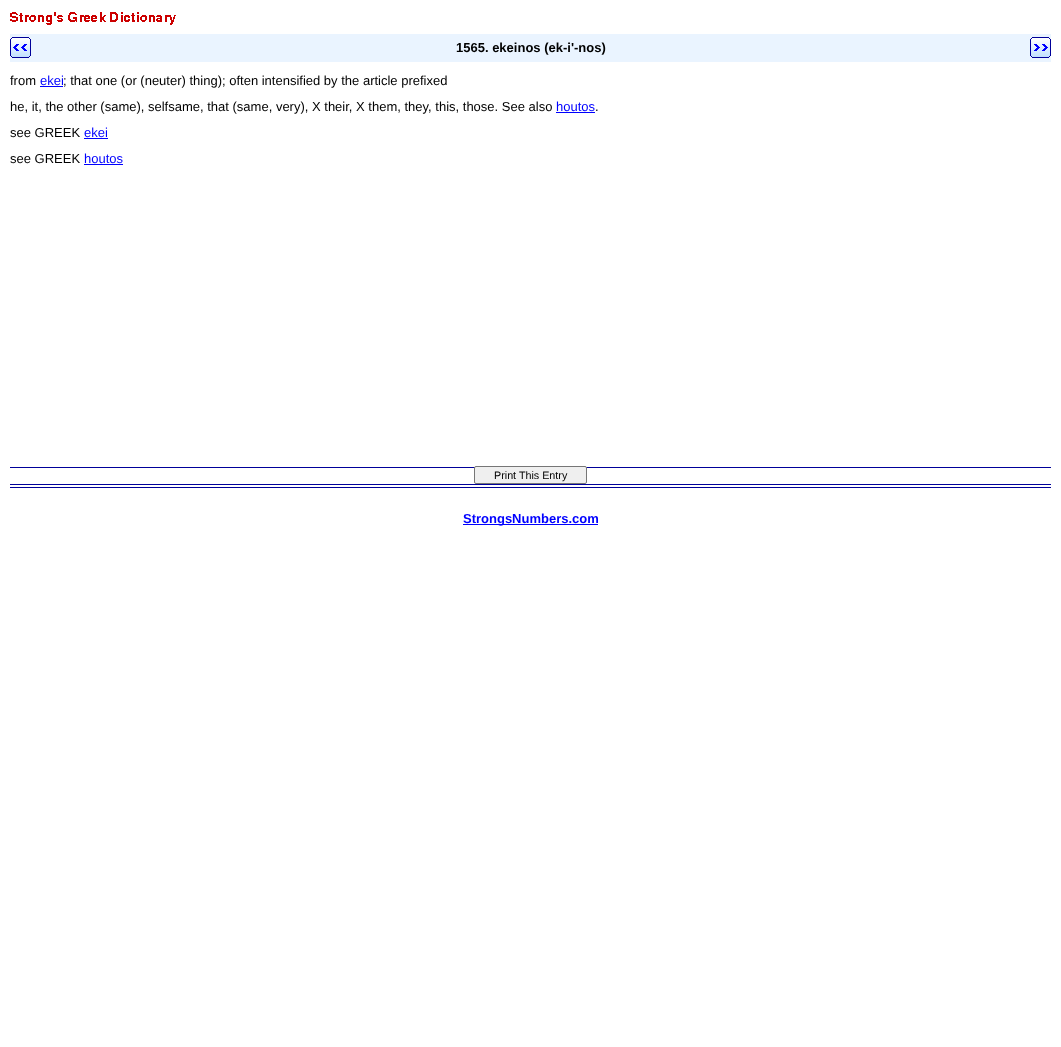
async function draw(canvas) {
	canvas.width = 1061;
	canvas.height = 1047;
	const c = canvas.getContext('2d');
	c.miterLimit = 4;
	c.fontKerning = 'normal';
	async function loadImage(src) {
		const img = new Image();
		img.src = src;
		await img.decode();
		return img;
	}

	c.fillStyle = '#fff';
	c.fillRect(0, 0, 1061, 1047);
	c.drawImage(await loadImage('img1.png'), 10, 12, 166, 13);
	c.fillStyle = '#eaf4ff';
	c.fillRect(10, 34, 1041, 28);
	c.drawImage(await loadImage('img2.png'), 10, 37, 21, 21);
	c.font = 'bold 13px Liberation Sans';
	c.fillStyle = '#000';
	c.fillText('1565. ekeinos (ek-i\'-nos)', 456, 52);
	c.drawImage(await loadImage('img3.png'), 1030, 37, 21, 21);
	c.font = '13px Liberation Sans';
	c.fillText('from', 10, 85);
	c.fillStyle = '#00f';
	c.fillText('ekei', 40, 85);
	c.fillRect(40, 86, 23, 1);
	c.fillStyle = '#000';
	c.fillText('; that one (or (neuter) thing); often intensified by the article prefixed', 63, 85);
	c.fillText('he, it, the other (same), selfsame, that (same, very), X their, X them, they, this, those. See also', 10, 111);
	c.fillStyle = '#00f';
	c.fillText('houtos', 556, 111);
	c.fillRect(556, 112, 39, 1);
	c.fillStyle = '#000';
	c.fillText('.', 595, 111);
	c.fillText('see GREEK', 10, 137);
	c.fillStyle = '#00f';
	c.fillText('ekei', 84, 137);
	c.fillRect(84, 138, 24, 1);
	c.fillStyle = '#000';
	c.fillText('see GREEK', 10, 163);
	c.fillStyle = '#00f';
	c.fillText('houtos', 84, 163);
	c.fillRect(84, 164, 39, 1);
	c.drawImage(await loadImage('img4.png'), 10, 466, 1041, 34);
	c.fillStyle = '#efefef';
	c.beginPath();
	c.roundRect(474.5, 466.5, 112, 17, 1.5);
	c.fill();
	c.strokeStyle = '#767676';
	c.stroke();
	c.font = '10.75px Liberation Sans';
	c.fillStyle = '#000';
	c.fillText('Print This Entry', 494, 479);
	c.fillStyle = '#00f';
	c.fillRect(463, 524, 135, 1);
	c.font = 'bold 13px Liberation Sans';
	c.fillText('StrongsNumbers.com', 463, 523);
}

draw(document.querySelector('canvas'));
